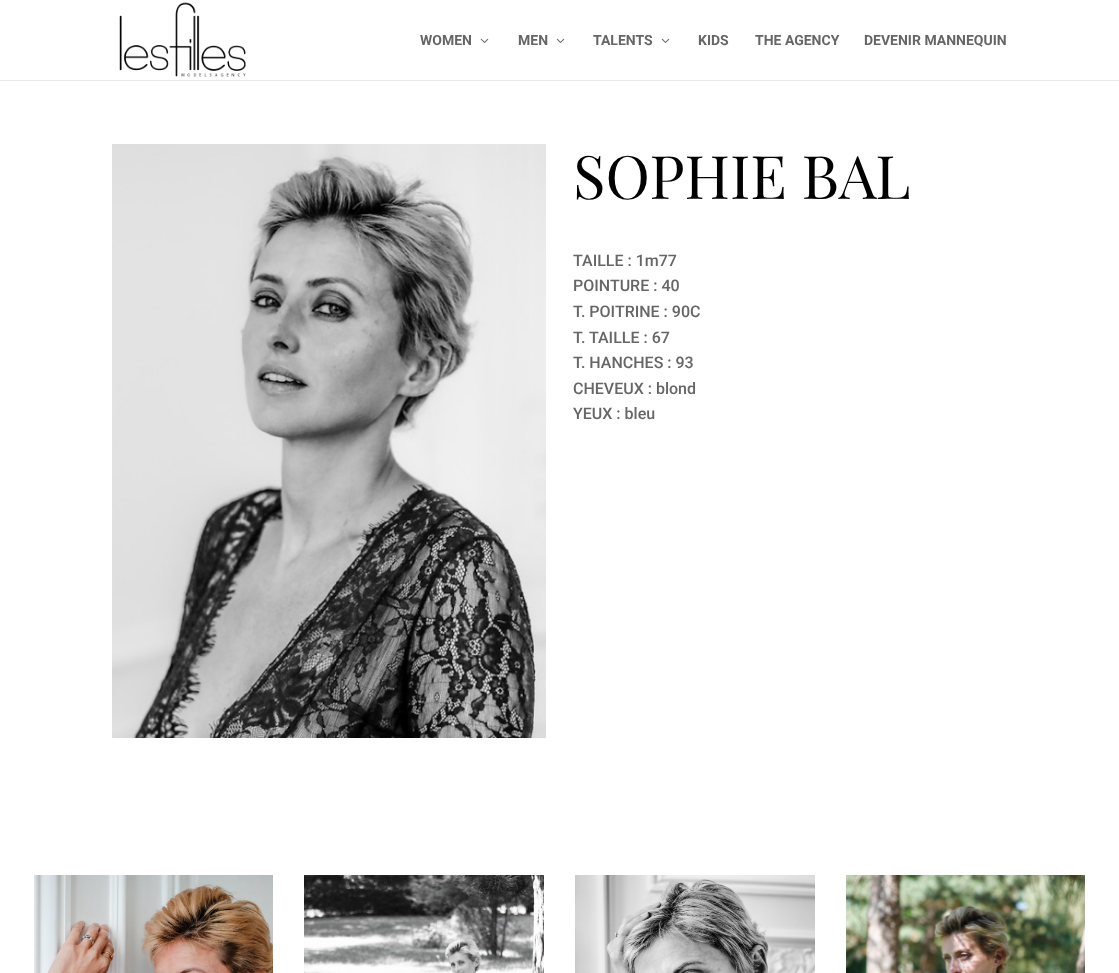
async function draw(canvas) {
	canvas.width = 1119;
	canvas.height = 973;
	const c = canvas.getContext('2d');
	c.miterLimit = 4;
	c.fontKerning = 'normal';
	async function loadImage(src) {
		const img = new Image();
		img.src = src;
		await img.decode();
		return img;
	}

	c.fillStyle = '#fff';
	c.fillRect(0, 0, 1119, 973);
	c.fillStyle = '#e6e6e6';
	c.fillRect(0, 80, 1119, 1);
	c.drawImage(await loadImage('img1.png'), 119, 2, 127, 75);
	c.font = 'bold 14px Roboto';
	c.fillStyle = '#666';
	c.fillText('WOMEN', 420, 45);
	c.drawImage(await loadImage('img2.png'), 480, 38, 9, 5);
	c.fillText('MEN', 518, 45);
	c.drawImage(await loadImage('img2.png'), 556, 38, 9, 5);
	c.fillText('TALENTS', 593, 45);
	c.drawImage(await loadImage('img2.png'), 661, 38, 9, 5);
	for (const [text, x, y] of [
		['KIDS', 698, 45],
		['THE AGENCY', 755, 45],
		['DEVENIR MANNEQUIN', 864, 45],
	]) {
		c.fillText(text, x, y);
	}
	c.drawImage(await loadImage('img3.png'), 112, 144, 434, 594);
	c.font = '60px Playfair Display';
	c.fillStyle = '#000';
	c.fillText('SOPHIE BAL', 573, 199);
	c.font = '500 16px Roboto';
	c.fillStyle = '#666';
	for (const [text, x, y] of [
		['TAILLE : 1m77', 573, 266],
		['POINTURE : 40', 573, 291],
		['T. POITRINE : 90C', 573, 317],
		['T. TAILLE : 67', 573, 343],
		['T. HANCHES : 93', 573, 368],
		['CHEVEUX : blond', 573, 394],
		['YEUX : bleu', 573, 419],
	]) {
		c.fillText(text, x, y);
	}
	c.drawImage(await loadImage('img4.png'), 34, 875, 239, 98);
	c.drawImage(await loadImage('img5.png'), 304, 875, 240, 98);
	c.drawImage(await loadImage('img6.png'), 575, 875, 240, 98);
	c.drawImage(await loadImage('img7.png'), 846, 875, 239, 98);
}

draw(document.querySelector('canvas'));
